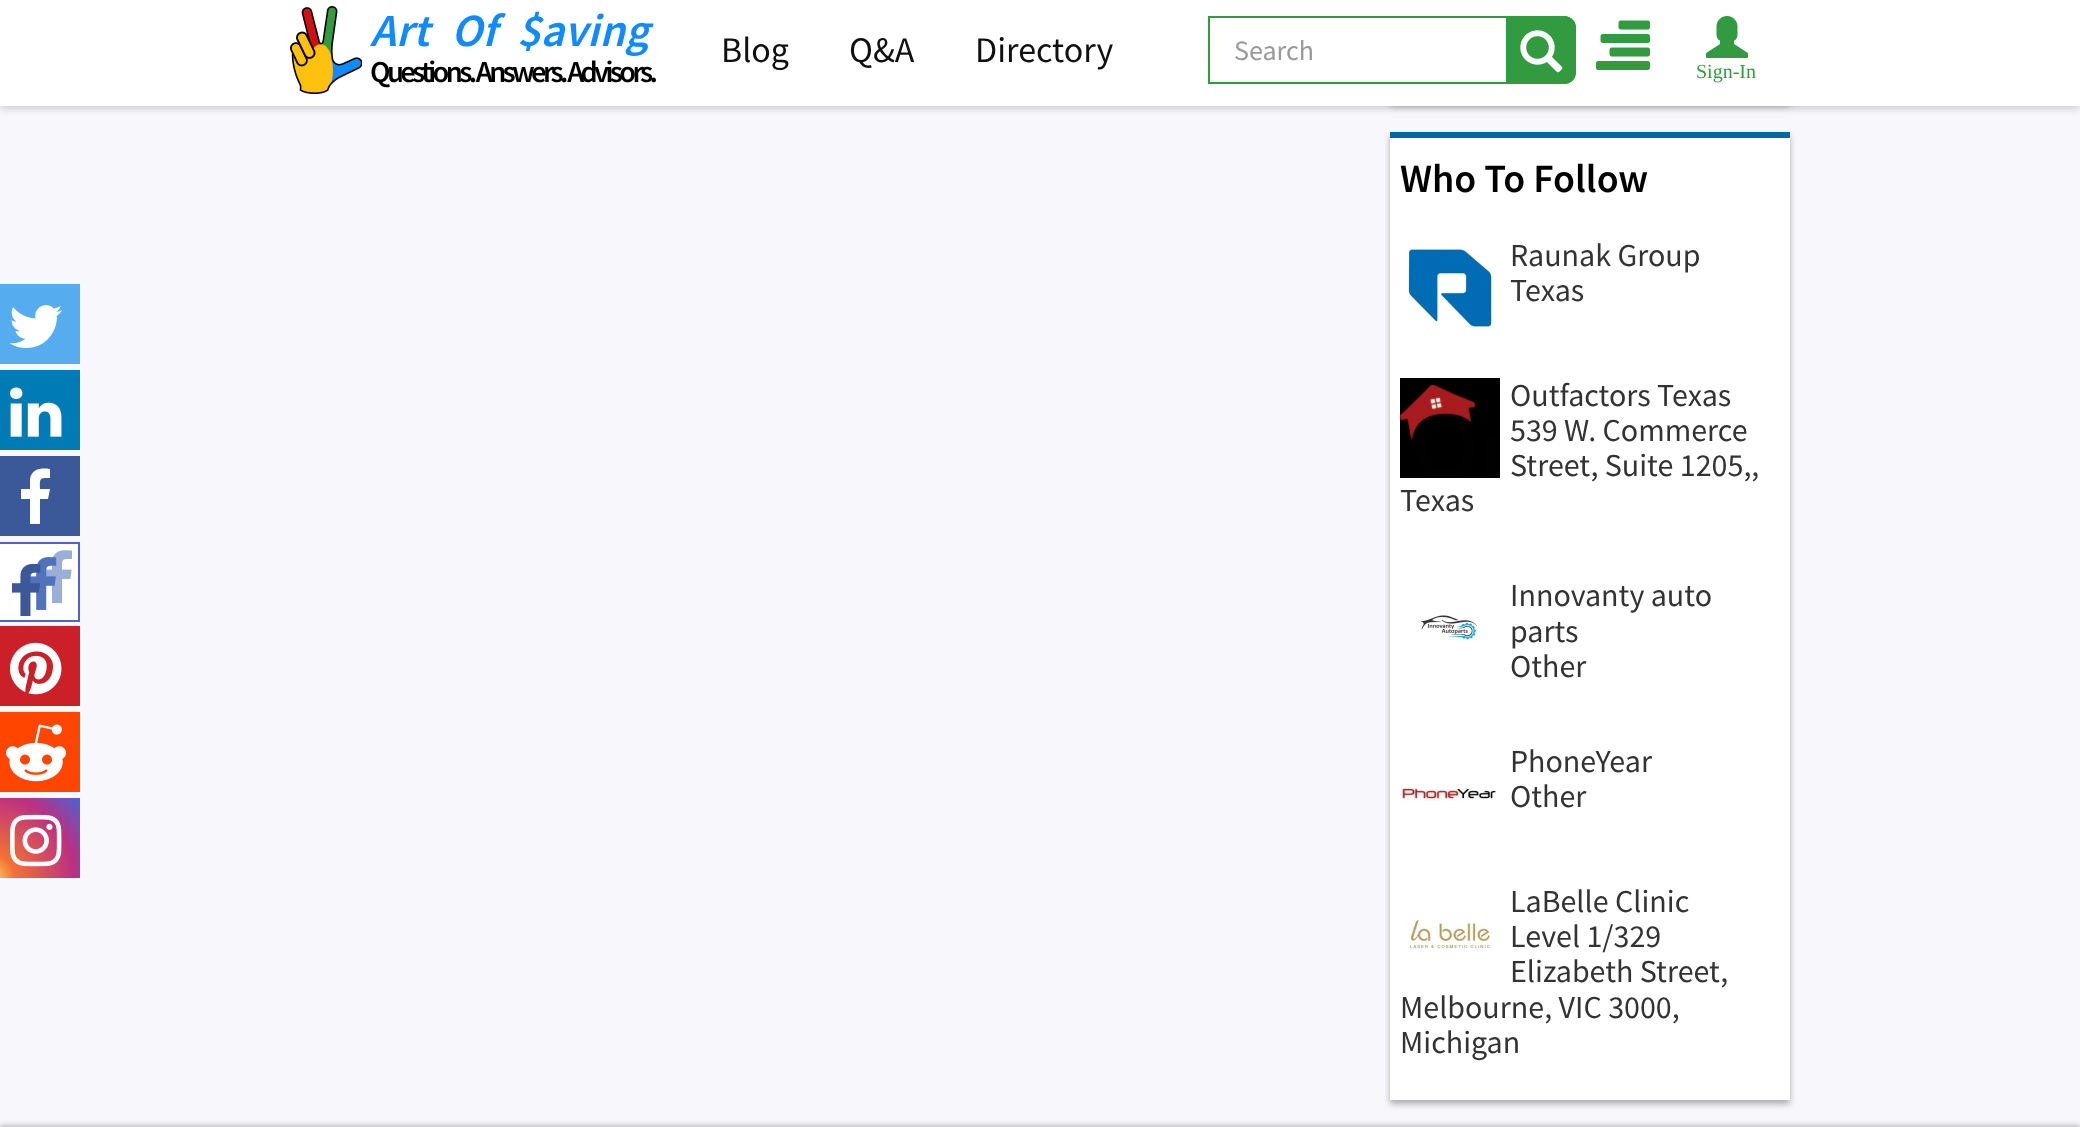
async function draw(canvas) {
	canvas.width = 2080;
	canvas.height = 1127;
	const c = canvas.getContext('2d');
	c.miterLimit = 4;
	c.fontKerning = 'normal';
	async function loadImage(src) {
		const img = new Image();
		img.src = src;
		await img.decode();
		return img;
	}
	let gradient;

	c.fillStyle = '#f8f8fc';
	c.fillRect(0, 0, 2080, 1127);
	c.fillStyle = '#00000033';
	c.filter = 'blur(4px)';
	c.beginPath();
	c.rect(0, 2, 2080, 106);
	c.fill();
	c.filter = 'none';
	c.fillStyle = '#0000004d';
	c.filter = 'blur(3px)';
	c.beginPath();
	c.rect(1390, -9, 400, 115);
	c.fill();
	c.filter = 'none';
	c.fillStyle = '#fff';
	c.fillRect(0, 0, 2080, 106);
	c.drawImage(await loadImage('img1.png'), 290, 6, 72, 88);
	c.font = 'italic 600 46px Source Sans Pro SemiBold';
	c.fillStyle = '#0f8aff';
	for (const [text, x, y] of [
		['Art', 370, 46],
		['Of', 451, 46],
		['$aving', 517, 46],
	]) {
		c.fillText(text, x, y);
	}
	c.letterSpacing = '-3.65px';
	c.font = '600 30.5px Source Sans Pro SemiBold';
	c.fillStyle = '#000';
	c.fillText('Questions. Answers. Advisors.', 370, 82);
	c.letterSpacing = '0px';
	c.font = '36px Source Sans Pro';
	c.fillStyle = '#101010';
	for (const [text, x, y] of [
		['Blog', 721, 62],
		['Q&A', 849, 62],
		['Directory', 975, 62],
	]) {
		c.fillText(text, x, y);
	}
	c.strokeStyle = '#329b3f';
	c.lineWidth = 2;
	c.strokeRect(1209, 17, 298, 66);
	c.font = '28px Source Sans Pro';
	c.fillStyle = '#999';
	c.fillText('Search', 1234, 60);
	c.fillStyle = '#329b3f';
	c.beginPath();
	c.roundRect(1508, 16, 68, 68, [0, 12, 12, 0]);
	c.fill();
	c.beginPath();
	c.moveTo(1508, 16);
	c.lineTo(1564, 16);
	c.bezierCurveTo(1571, 16, 1576, 21, 1576, 28);
	c.lineTo(1576, 72);
	c.bezierCurveTo(1576, 79, 1571, 84, 1564, 84);
	c.lineTo(1508, 84);
	c.closePath();
	c.moveTo(1508, 18);
	c.lineTo(1564, 18);
	c.bezierCurveTo(1570, 18, 1574, 22, 1574, 28);
	c.lineTo(1574, 72);
	c.bezierCurveTo(1574, 78, 1570, 82, 1564, 82);
	c.lineTo(1508, 82);
	c.closePath();
	c.fill('evenodd');
	c.drawImage(await loadImage('img2.png'), 1520, 30, 43, 43);
	c.drawImage(await loadImage('img3.png'), 1596, 20, 54, 50);
	c.drawImage(await loadImage('img4.png'), 1706, 16, 42, 42);
	c.font = '20px Liberation Serif';
	c.fillText('Sign-In', 1696, 78);
	c.fillStyle = '#55acee';
	c.fillRect(0, 284, 80, 80);
	c.drawImage(await loadImage('img5.png'), 9, 305, 54, 43);
	c.fillStyle = '#007bb5';
	c.fillRect(0, 370, 80, 80);
	c.drawImage(await loadImage('img6.png'), 10, 387, 52, 50);
	c.fillStyle = '#3b5998';
	c.fillRect(0, 456, 80, 80);
	c.fillStyle = '#fff';
	c.beginPath();
	c.moveTo(50, 469);
	c.lineTo(50, 478);
	c.bezierCurveTo(39, 478, 40, 478, 40, 489);
	c.lineTo(50, 489);
	c.lineTo(48, 499);
	c.lineTo(40, 499);
	c.lineTo(40, 524);
	c.lineTo(30, 524);
	c.lineTo(30, 499);
	c.lineTo(21, 499);
	c.lineTo(21, 489);
	c.lineTo(30, 489);
	c.lineTo(30, 479);
	c.bezierCurveTo(32, 468, 42, 468, 50, 469);
	c.closePath();
	c.fill();
	c.fillRect(0, 544, 78, 76);
	c.drawImage(await loadImage('img7.png'), 12, 550, 60, 66);
	c.strokeStyle = '#4c63d2';
	c.strokeRect(-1, 543, 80, 78);
	c.fillStyle = '#cb2027';
	c.fillRect(0, 626, 80, 80);
	c.drawImage(await loadImage('img8.png'), 10, 642, 52, 53);
	c.fillStyle = '#ff4500';
	c.fillRect(0, 712, 80, 80);
	c.drawImage(await loadImage('img9.png'), 6, 724, 60, 58);
	gradient = c.createRadialGradient(-10, 878, 0, -10, 878, 120);
	gradient.addColorStop(0, '#fed576');
	gradient.addColorStop(0.2, '#f47133');
	gradient.addColorStop(0.7, '#bc3081');
	gradient.addColorStop(1, '#4c63d2');
	c.fillStyle = gradient;
	c.fillRect(0, 798, 80, 80);
	c.drawImage(await loadImage('img10.png'), 10, 814, 52, 53);
	c.fillStyle = '#0000004d';
	c.filter = 'blur(3px)';
	c.beginPath();
	c.rect(1390, 136, 400, 968);
	c.fill();
	c.filter = 'none';
	c.fillStyle = '#fff';
	c.fillRect(1390, 138, 400, 962);
	c.fillStyle = '#0068a4';
	c.fillRect(1390, 132, 400, 6);
	c.font = '600 40px Source Sans Pro SemiBold';
	c.fillStyle = '#000';
	c.fillText('Who To Follow', 1400, 192);
	c.drawImage(await loadImage('img11.png'), 1408, 246, 88, 86);
	c.font = '32px Source Sans Pro';
	c.fillStyle = '#333';
	c.fillText('Raunak Group', 1510, 266);
	c.fillText('Texas', 1510, 301);
	c.drawImage(await loadImage('img12.png'), 1400, 378, 100, 100);
	for (const [text, x, y] of [
		['Outfactors Texas', 1510, 406],
		['539 W. Commerce', 1510, 441],
		['Street, Suite 1205,,', 1510, 476],
		['Texas', 1400, 511],
	]) {
		c.fillText(text, x, y);
	}
	c.drawImage(await loadImage('img13.png'), 1420, 615, 60, 27);
	for (const [text, x, y] of [
		['Innovanty auto', 1510, 606],
		['parts', 1510, 642],
		['Other', 1510, 677],
	]) {
		c.fillText(text, x, y);
	}
	c.drawImage(await loadImage('img14.png'), 1400, 784, 96, 20);
	for (const [text, x, y] of [
		['PhoneYear', 1510, 772],
		['Other', 1510, 807],
		['LaBelle Clinic', 1510, 912],
		['Level 1/329', 1510, 947],
		['Elizabeth Street,', 1510, 982],
		['Melbourne, VIC 3000,', 1400, 1018],
		['Michigan', 1400, 1053],
	]) {
		c.fillText(text, x, y);
	}
	c.drawImage(await loadImage('img15.png'), 1408, 916, 87, 33);
	c.fillStyle = '#0000004d';
	c.filter = 'blur(3px)';
	c.beginPath();
	c.rect(0, 1126, 2080, 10);
	c.fill();
	c.filter = 'none';
}

draw(document.querySelector('canvas'));
